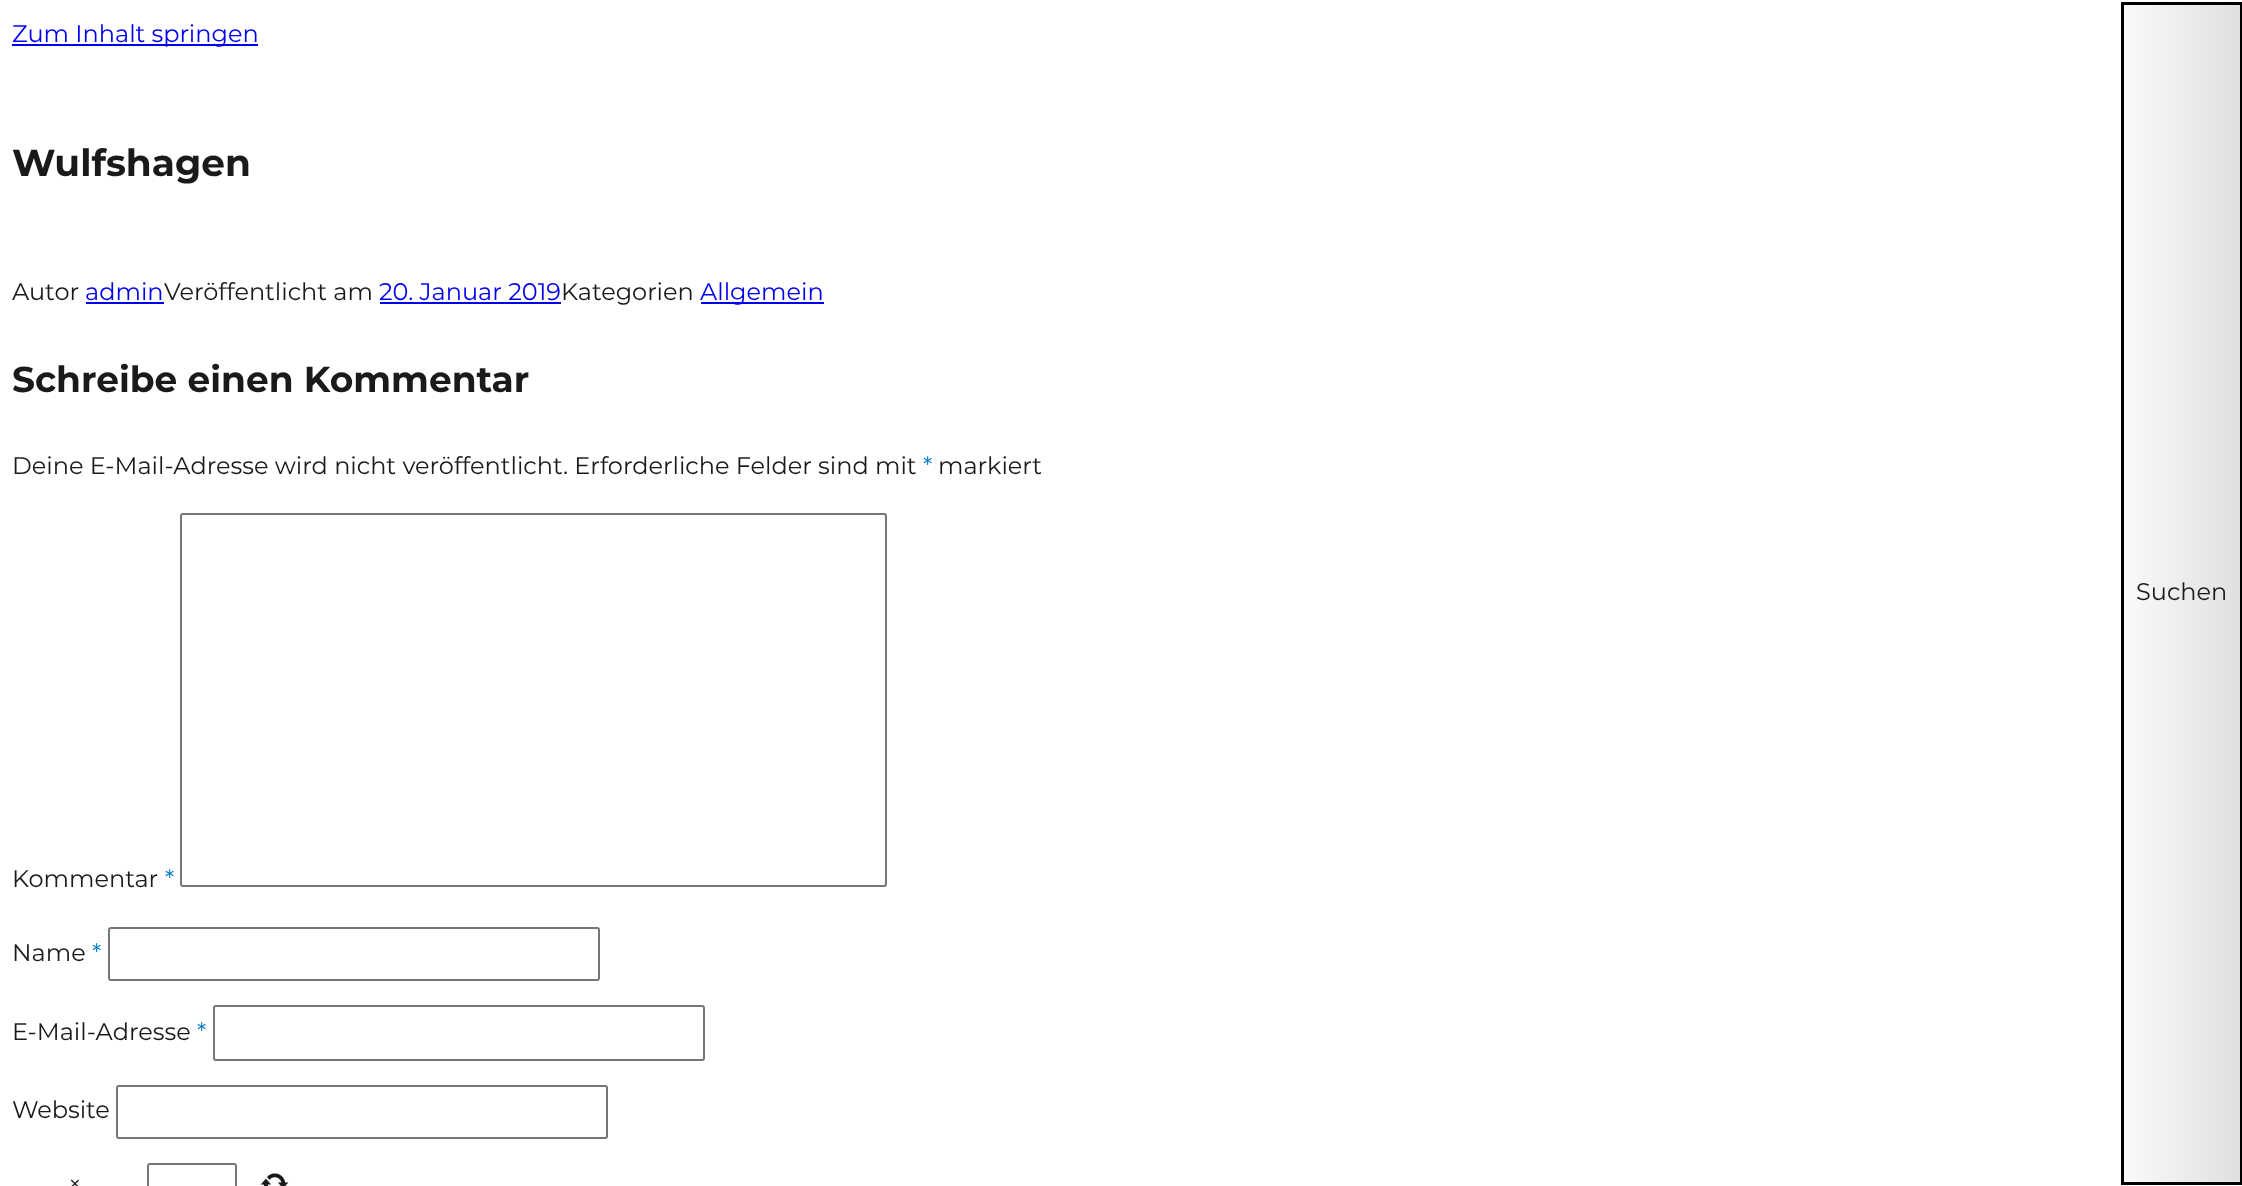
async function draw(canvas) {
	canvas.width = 2242;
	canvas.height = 1186;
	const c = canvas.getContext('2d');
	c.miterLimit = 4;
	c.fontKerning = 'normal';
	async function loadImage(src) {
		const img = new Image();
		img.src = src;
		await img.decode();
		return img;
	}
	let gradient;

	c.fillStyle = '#fff';
	c.fillRect(0, 0, 2242, 1186);
	c.fillStyle = '#00e';
	c.fillRect(12, 44, 246, 2);
	c.font = '24px Montserrat';
	c.fillText('Zum Inhalt springen', 12, 42);
	c.font = 'bold 37.5px Montserrat';
	c.fillStyle = '#1a1a1a';
	c.fillText('Wulfshagen', 12, 176);
	c.font = '24px Montserrat';
	c.fillText('Autor', 12, 300);
	c.fillStyle = '#00e';
	c.fillText('admin', 85, 300);
	c.fillRect(86, 302, 78, 2);
	c.fillStyle = '#1a1a1a';
	c.fillText('Veröffentlicht am', 164, 300);
	c.fillStyle = '#00e';
	c.fillText('20. Januar 2019', 379, 300);
	c.fillRect(380, 302, 181, 2);
	c.fillStyle = '#1a1a1a';
	c.fillText('Kategorien', 561, 300);
	c.fillStyle = '#00e';
	c.fillRect(701, 302, 123, 2);
	c.fillText('Allgemein', 700, 300);
	c.font = 'bold 36px Montserrat';
	c.fillStyle = '#1a1a1a';
	c.fillText('Schreibe einen Kommentar', 12, 392);
	c.font = '24px Montserrat';
	c.fillText('Deine E-Mail-Adresse wird nicht veröffentlicht. Erforderliche Felder sind mit', 12, 474);
	c.fillStyle = '#007acc';
	c.fillText('*', 923, 474);
	c.fillStyle = '#1a1a1a';
	c.fillText('markiert', 938, 474);
	c.fillText('Kommentar', 12, 887);
	c.fillStyle = '#007acc';
	c.fillText('*', 165, 887);
	c.beginPath();
	c.roundRect(181, 514, 705, 372, 2);
	c.strokeStyle = '#767676';
	c.lineWidth = 2;
	c.stroke();
	c.fillStyle = '#1a1a1a';
	c.fillText('Name', 12, 961);
	c.fillStyle = '#007acc';
	c.fillText('*', 92, 961);
	c.beginPath();
	c.roundRect(109, 928, 490, 52, 2);
	c.stroke();
	c.fillStyle = '#1a1a1a';
	c.fillText('E-Mail-Adresse', 12, 1040);
	c.fillStyle = '#007acc';
	c.fillText('*', 197, 1040);
	c.beginPath();
	c.roundRect(214, 1006, 490, 54, 2);
	c.stroke();
	c.fillStyle = '#1a1a1a';
	c.fillText('Website', 12, 1118);
	c.beginPath();
	c.roundRect(117, 1086, 490, 52, 2);
	c.stroke();
	c.fillText('×', 68, 1192);
	c.beginPath();
	c.roundRect(148, 1164, 88, 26, 2);
	c.stroke();
	c.drawImage(await loadImage('img1.png'), 260, 1173, 29, 13);
	gradient = c.createLinearGradient(2240, 593, 2124, 593);
	gradient.addColorStop(0, '#e0e0e0');
	gradient.addColorStop(1, '#fafafa');
	c.fillStyle = gradient;
	c.fillRect(2124, 5, 116, 1177);
	c.strokeStyle = '#000';
	c.lineWidth = 3;
	c.strokeRect(2122.5, 3.5, 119, 1180);
	c.fillStyle = '#1a1a1a';
	c.fillText('Suchen', 2136, 600);
}

draw(document.querySelector('canvas'));
